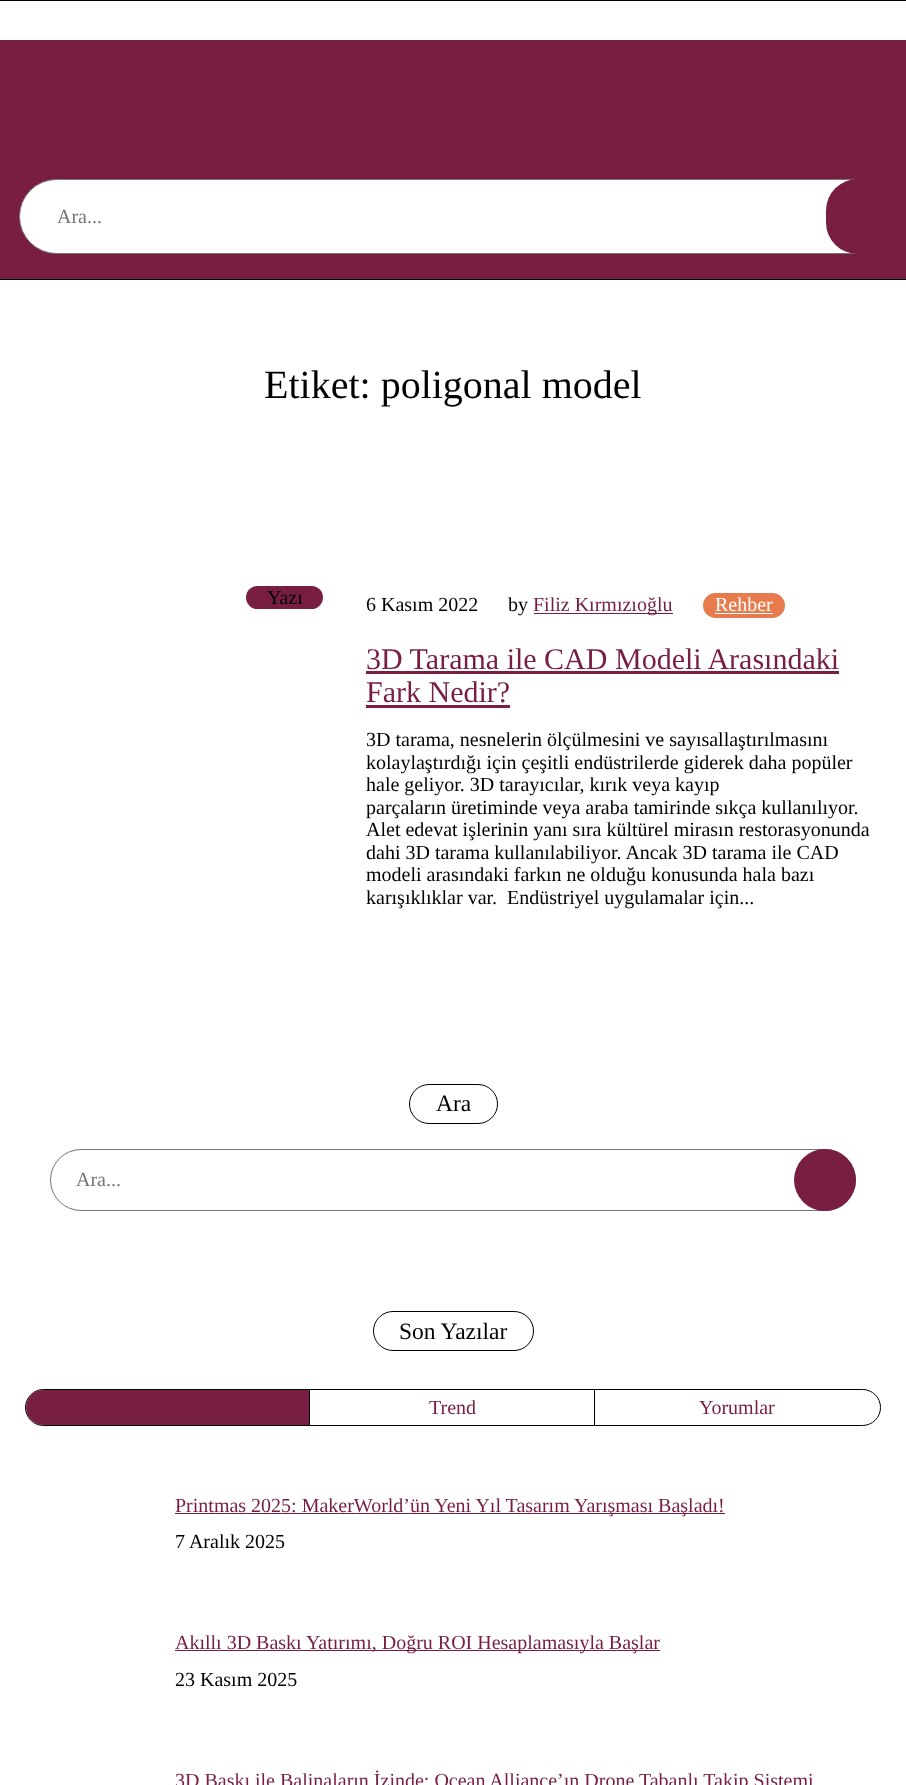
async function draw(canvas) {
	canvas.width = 906;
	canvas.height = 1785;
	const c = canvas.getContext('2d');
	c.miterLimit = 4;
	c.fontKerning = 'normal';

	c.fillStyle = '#fff';
	c.fillRect(0, 0, 906, 1785);
	for (const [x, y, w, h, color] of [
		[0, 0, 906, 1, '#000'],
		[0, 40, 906, 239, '#771e42'],
		[0, 279, 906, 1, '#000'],
	]) {
		c.fillStyle = color;
		c.fillRect(x, y, w, h);
	}
	c.fillStyle = '#fff';
	c.beginPath();
	c.roundRect(19.5, 179.5, 869, 74, 37);
	c.fill();
	c.strokeStyle = '#767676';
	c.stroke();
	c.font = '20px Liberation Serif';
	c.fillStyle = '#757575';
	c.fillText('Ara...', 57, 223);
	c.fillStyle = '#771e42';
	c.beginPath();
	c.roundRect(826, 179, 63, 75, 31.5);
	c.fill();
	c.font = '40px Liberation Serif';
	c.fillStyle = '#000';
	c.fillText('Etiket: poligonal model', 264, 398);
	c.fillStyle = '#771e42';
	c.beginPath();
	c.roundRect(246, 586, 77, 23, 11.5);
	c.fill();
	c.font = '20px Liberation Serif';
	c.fillStyle = '#000';
	for (const [text, x, y] of [
		['Yazı', 267, 604],
		['6 Kasım 2022', 366, 611],
		['by', 508, 611],
	]) {
		c.fillText(text, x, y);
	}
	c.fillStyle = '#771e42';
	c.fillRect(534, 613, 139, 1);
	c.fillText('Filiz Kırmızıoğlu', 533, 611);
	c.fillStyle = '#e87b4d';
	c.beginPath();
	c.roundRect(703, 593, 82, 25, 12.5);
	c.fill();
	c.fillStyle = '#fff';
	c.fillText('Rehber', 715, 611);
	c.fillRect(715, 613, 58, 1);
	c.font = '30px Liberation Serif';
	c.fillStyle = '#771e42';
	c.fillText('3D Tarama ile CAD Modeli Arasındaki', 366, 669);
	c.fillRect(366, 671, 473, 3);
	c.fillText('Fark Nedir?', 366, 702);
	c.fillRect(366, 705, 144, 3);
	c.font = '20px Liberation Serif';
	c.fillStyle = '#000';
	for (const [text, x, y] of [
		['3D tarama, nesnelerin ölçülmesini ve sayısallaştırılmasını', 366, 746],
		['kolaylaştırdığı için çeşitli endüstrilerde giderek daha popüler', 366, 769],
		['hale geliyor. 3D tarayıcılar, kırık veya kayıp', 366, 791],
		['parçaların üretiminde veya araba tamirinde sıkça kullanılıyor.', 366, 814],
		['Alet edevat işlerinin yanı sıra kültürel mirasın restorasyonunda', 366, 836],
		['dahi 3D tarama kullanılabiliyor. Ancak 3D tarama ile CAD', 366, 859],
		['modeli arasındaki farkın ne olduğu konusunda hala bazı', 366, 881],
		['karışıklıklar var.  Endüstriyel uygulamalar için...', 366, 904],
	]) {
		c.fillText(text, x, y);
	}
	c.beginPath();
	c.roundRect(409.5, 1084.5, 88, 39, 19.5);
	c.strokeStyle = '#000';
	c.stroke();
	c.font = '23.5px Liberation Serif';
	c.fillText('Ara', 436, 1111);
	c.beginPath();
	c.roundRect(50.5, 1149.5, 805, 61, 30.5);
	c.strokeStyle = '#767676';
	c.stroke();
	c.font = '20px Liberation Serif';
	c.fillStyle = '#757575';
	c.fillText('Ara...', 76, 1186);
	c.fillStyle = '#771e42';
	c.beginPath();
	c.arc(825, 1180, 31, 0, 2 * Math.PI);
	c.fill();
	c.beginPath();
	c.roundRect(373.5, 1311.5, 160, 39, 19.5);
	c.strokeStyle = '#000';
	c.stroke();
	c.font = '23.5px Liberation Serif';
	c.fillStyle = '#000';
	c.fillText('Son Yazılar', 399, 1339);
	c.beginPath();
	c.roundRect(25.5, 1389.5, 855, 36, 18);
	c.stroke();
	c.fillStyle = '#771e42';
	c.beginPath();
	c.roundRect(26, 1390, 284, 35, [17.5, 0, 0, 17.5]);
	c.fill();
	c.fillStyle = '#000';
	c.fillRect(309, 1390, 1, 35);
	c.fillRect(594, 1390, 1, 35);
	c.font = '20px Liberation Serif';
	c.fillStyle = '#771e42';
	c.fillText('Trend', 429, 1414);
	c.fillText('Yorumlar', 699, 1414);
	c.fillRect(175, 1513, 550, 1);
	c.fillText('Printmas 2025: MakerWorld’ün Yeni Yıl Tasarım Yarışması Başladı!', 175, 1512);
	c.fillStyle = '#000';
	c.fillText('7 Aralık 2025', 175, 1548);
	c.fillStyle = '#771e42';
	c.fillRect(175, 1650, 485, 1);
	c.fillText('Akıllı 3D Baskı Yatırımı, Doğru ROI Hesaplamasıyla Başlar', 175, 1649);
	c.fillStyle = '#000';
	c.fillText('23 Kasım 2025', 175, 1686);
	c.fillStyle = '#771e42';
	c.fillText('3D Baskı ile Balinaların İzinde: Ocean Alliance’ın Drone Tabanlı Takip Sistemi', 175, 1787);
}

draw(document.querySelector('canvas'));
